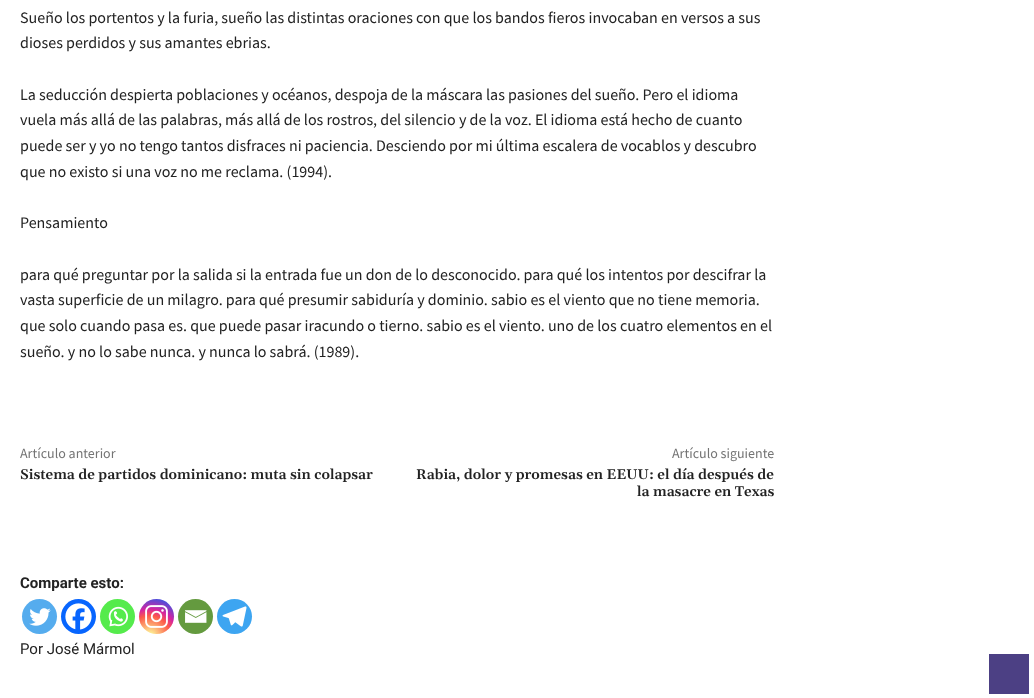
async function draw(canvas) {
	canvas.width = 1034;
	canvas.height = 698;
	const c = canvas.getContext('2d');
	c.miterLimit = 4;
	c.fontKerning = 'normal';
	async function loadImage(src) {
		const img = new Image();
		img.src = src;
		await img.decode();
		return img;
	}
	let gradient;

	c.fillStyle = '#fff';
	c.fillRect(0, 0, 1034, 698);
	c.font = '16px Source Sans Pro';
	c.fillStyle = '#222';
	for (const [text, x, y] of [
		['Sueño los portentos y la furia, sueño las distintas oraciones con que los bandos fieros invocaban en versos a sus', 20, 23],
		['dioses perdidos y sus amantes ebrias.', 20, 48],
		['La seducción despierta poblaciones y océanos, despoja de la máscara las pasiones del sueño. Pero el idioma', 20, 100],
		['vuela más allá de las palabras, más allá de los rostros, del silencio y de la voz. El idioma está hecho de cuanto', 20, 125],
		['puede ser y yo no tengo tantos disfraces ni paciencia. Desciendo por mi última escalera de vocablos y descubro', 20, 151],
		['que no existo si una voz no me reclama. (1994).', 20, 177],
		['Pensamiento', 20, 228],
		['para qué preguntar por la salida si la entrada fue un don de lo desconocido. para qué los intentos por descifrar la', 20, 280],
		['vasta superficie de un milagro. para qué presumir sabiduría y dominio. sabio es el viento que no tiene memoria.', 20, 305],
		['que solo cuando pasa es. que puede pasar iracundo o tierno. sabio es el viento. uno de los cuatro elementos en el', 20, 331],
		['sueño. y no lo sabe nunca. y nunca lo sabrá. (1989).', 20, 357],
	]) {
		c.fillText(text, x, y);
	}
	c.font = '14px Source Sans Pro';
	c.fillStyle = '#747474';
	c.fillText('Artículo anterior', 20, 458);
	c.font = '600 14px Gelasio';
	c.fillStyle = '#222';
	c.fillText('Sistema de partidos dominicano: muta sin colapsar', 20, 479);
	c.font = '14px Source Sans Pro';
	c.fillStyle = '#747474';
	c.fillText('Artículo siguiente', 672, 458);
	c.font = '600 14px Gelasio';
	c.fillStyle = '#222';
	c.fillText('Rabia, dolor y promesas en EEUU: el día después de', 416, 479);
	c.fillText('la masacre en Texas', 637, 496);
	c.font = 'bold 15px Roboto';
	c.fillText('Comparte esto:', 20, 588);
	c.fillStyle = '#55acee';
	c.beginPath();
	c.arc(39.5, 616.5, 17.5, 0, 2 * Math.PI);
	c.fill();
	c.drawImage(await loadImage('img1.png'), 29, 608, 22, 18);
	c.fillStyle = '#0765fe';
	c.beginPath();
	c.arc(78.5, 616.5, 17.5, 0, 2 * Math.PI);
	c.fill();
	c.drawImage(await loadImage('img2.png'), 65, 603, 27, 27);
	c.fillStyle = '#55eb4c';
	c.beginPath();
	c.arc(117.5, 616.5, 17.5, 0, 2 * Math.PI);
	c.fill();
	c.drawImage(await loadImage('img3.png'), 108, 606, 20, 21);
	gradient = c.createRadialGradient(150, 636, 0, 150, 636, 45);
	gradient.addColorStop(0, '#fdf497');
	gradient.addColorStop(0.05, '#fdf497');
	gradient.addColorStop(0.45, '#fd5949');
	gradient.addColorStop(0.6, '#d6249f');
	gradient.addColorStop(0.9, '#285aeb');
	c.fillStyle = gradient;
	c.beginPath();
	c.arc(156.5, 616.5, 17.5, 0, 2 * Math.PI);
	c.fill();
	c.drawImage(await loadImage('img4.png'), 145, 605, 23, 23);
	c.fillStyle = '#649a3f';
	c.beginPath();
	c.arc(195.5, 616.5, 17.5, 0, 2 * Math.PI);
	c.fill();
	c.drawImage(await loadImage('img5.png'), 185, 610, 22, 13);
	c.fillStyle = '#3da5f1';
	c.beginPath();
	c.arc(234.5, 616.5, 17.5, 0, 2 * Math.PI);
	c.fill();
	c.drawImage(await loadImage('img6.png'), 222, 606, 25, 21);
	c.font = '15px Roboto';
	c.fillStyle = '#222';
	c.fillText('Por José Mármol', 20, 654);
	c.fillStyle = '#4c4084';
	c.fillRect(989, 654, 40, 40);
}

draw(document.querySelector('canvas'));
